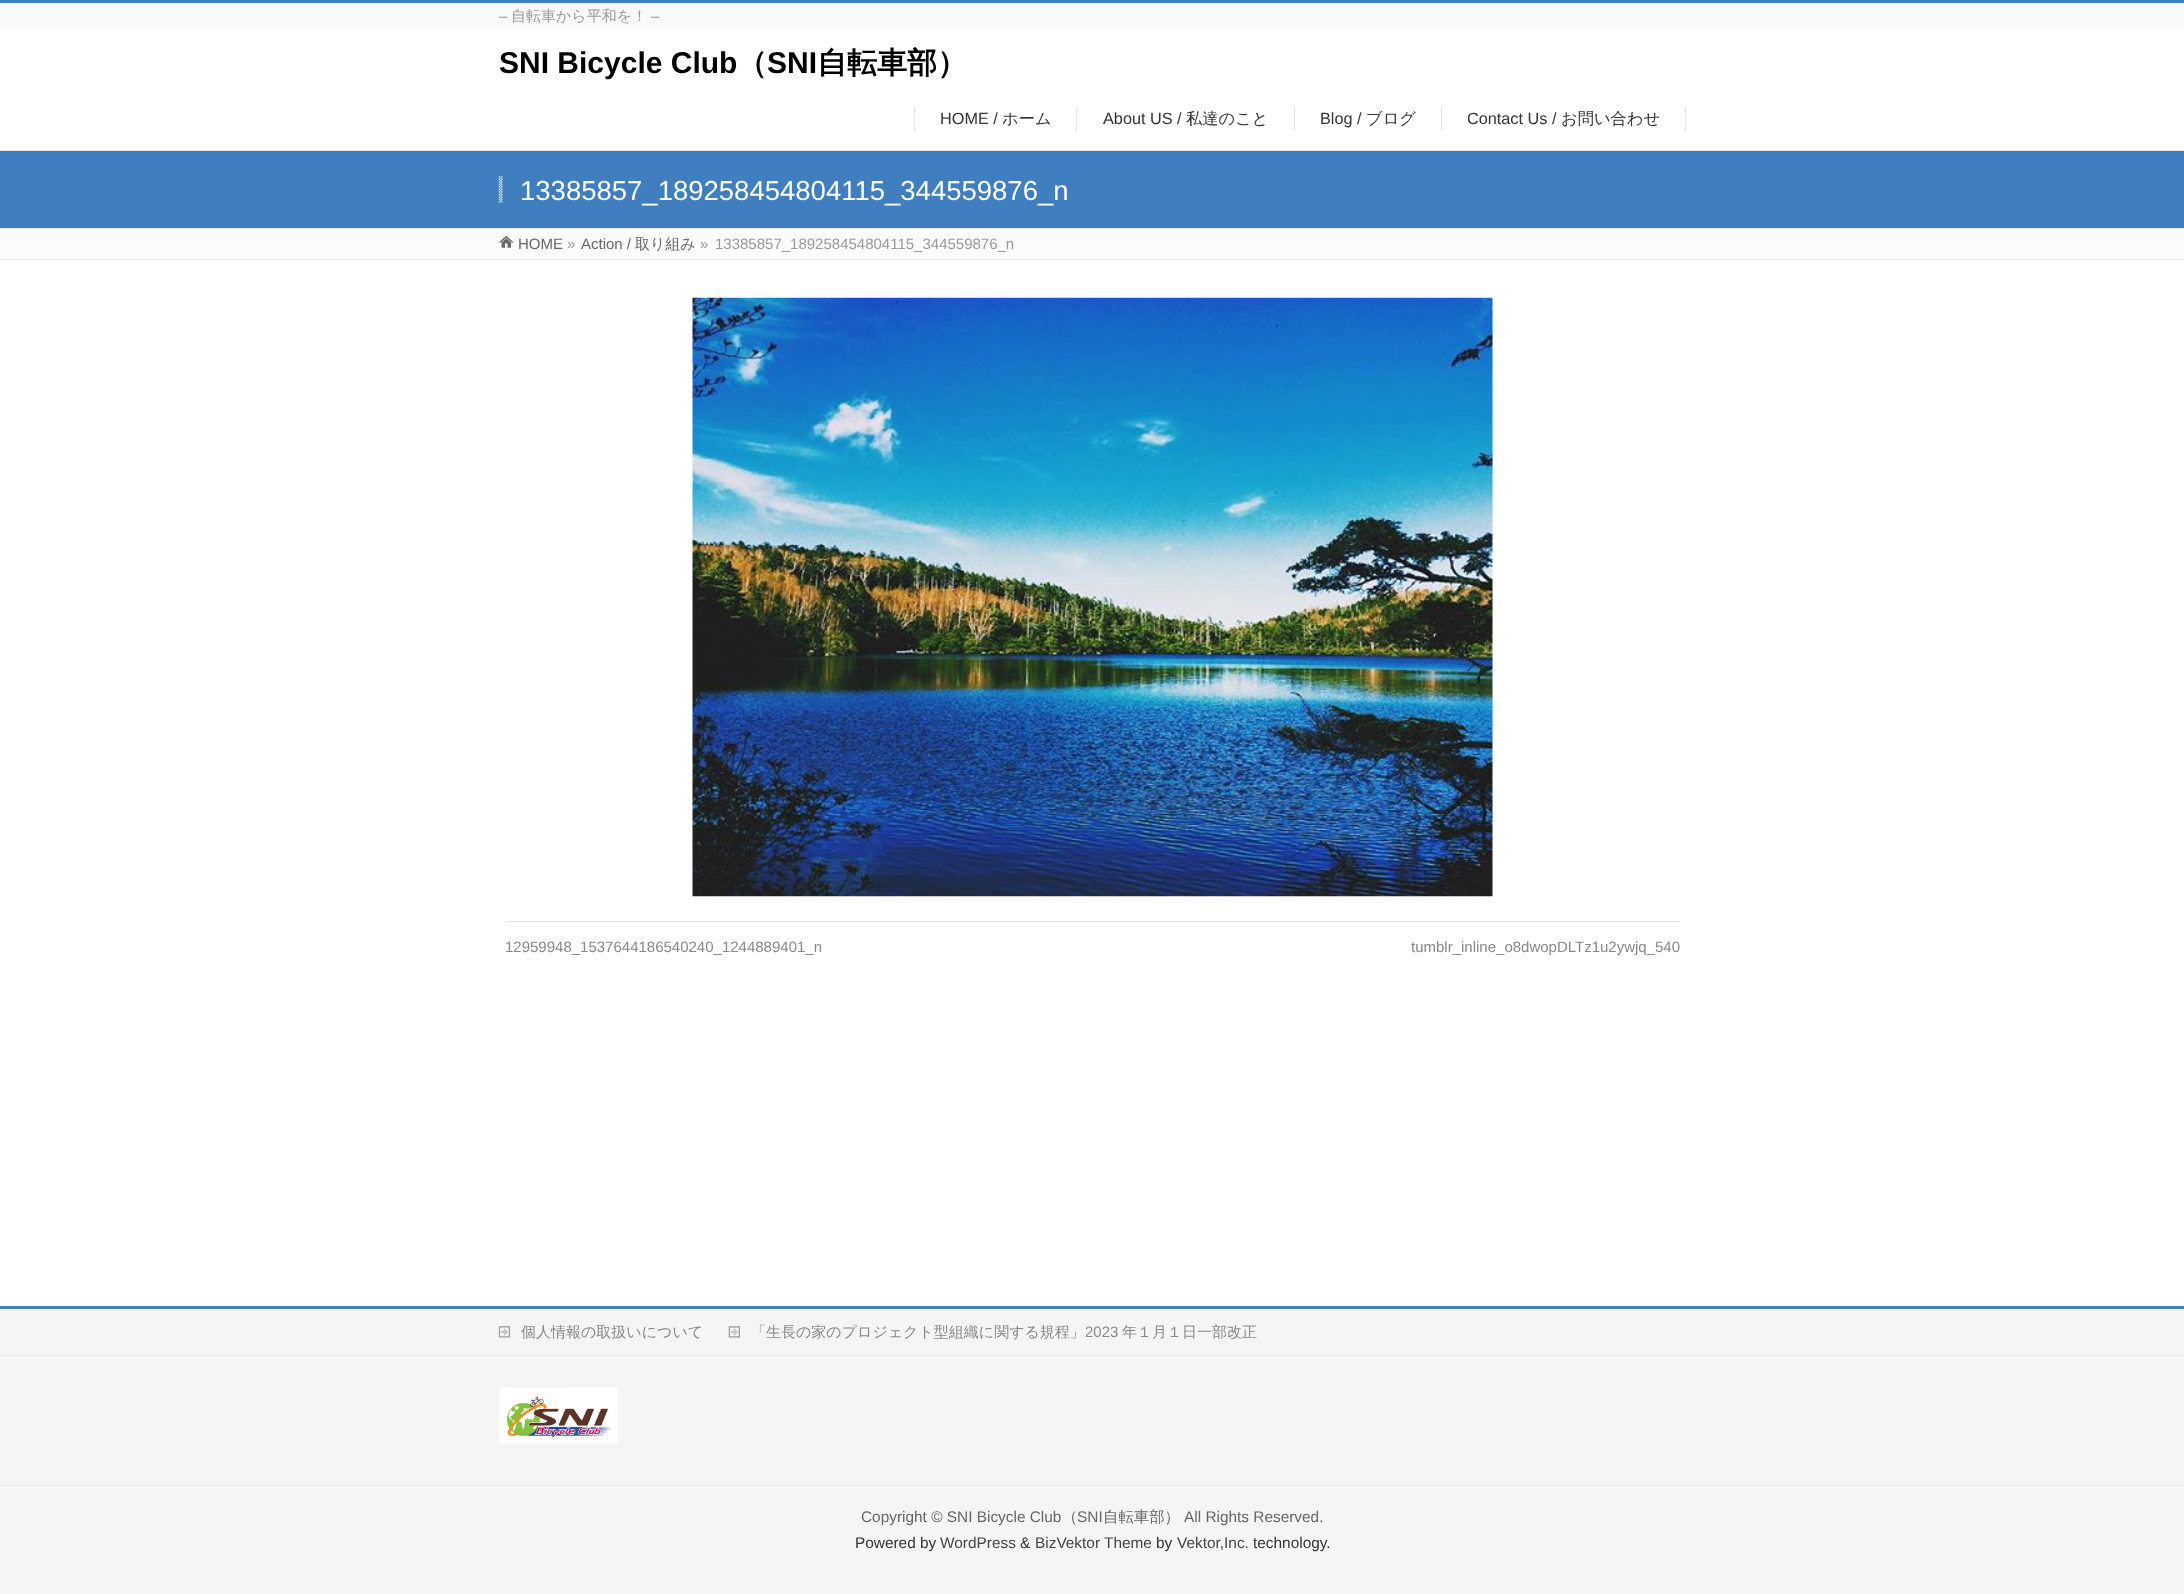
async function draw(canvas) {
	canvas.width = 2184;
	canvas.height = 1594;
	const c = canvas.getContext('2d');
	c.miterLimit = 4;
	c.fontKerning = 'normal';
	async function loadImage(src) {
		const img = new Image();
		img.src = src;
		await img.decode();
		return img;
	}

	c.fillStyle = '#fff';
	c.fillRect(0, 0, 2184, 1594);
	c.fillStyle = '#f9f9f9';
	c.fillRect(0, 3, 2184, 27);
	c.fillStyle = '#3f7fbf';
	c.fillRect(0, 0, 2184, 3);
	c.font = '15px Liberation Sans';
	c.fillStyle = '#999';
	c.fillText('–', 499, 21);
	c.font = '500 15px WenQuanYi Zen Hei';
	c.fillText('自転車から平和を！', 511, 21);
	c.font = '15px Liberation Sans';
	c.fillText('–', 651, 21);
	c.font = 'bold 30px Liberation Sans';
	c.fillStyle = '#000';
	c.fillText('SNI Bicycle Club', 499, 73);
	c.font = 'bold 30px WenQuanYi Zen Hei';
	c.fillText('（', 737, 73);
	c.font = 'bold 30px Liberation Sans';
	c.fillText('SNI', 767, 73);
	c.font = 'bold 30px WenQuanYi Zen Hei';
	c.fillText('自転車部）', 817, 73);
	c.fillStyle = '#e5e5e5';
	c.fillRect(1076, 106, 1, 25);
	c.fillRect(914, 106, 1, 25);
	c.font = '16.25px Liberation Sans';
	c.fillStyle = '#333';
	c.fillText('HOME /', 940, 124);
	c.font = '500 16.25px WenQuanYi Zen Hei';
	c.fillText('ホーム', 1002, 124);
	c.fillStyle = '#e5e5e5';
	c.fillRect(1294, 106, 1, 25);
	c.font = '16.25px Liberation Sans';
	c.fillStyle = '#333';
	c.fillText('About US /', 1103, 124);
	c.font = '500 16.25px WenQuanYi Zen Hei';
	c.fillText('私達のこと', 1186, 124);
	c.fillStyle = '#e5e5e5';
	c.fillRect(1441, 106, 1, 25);
	c.font = '16.25px Liberation Sans';
	c.fillStyle = '#333';
	c.fillText('Blog /', 1320, 124);
	c.font = '500 16.25px WenQuanYi Zen Hei';
	c.fillText('ブログ', 1366, 124);
	c.fillStyle = '#e5e5e5';
	c.fillRect(1685, 106, 1, 25);
	c.font = '16.25px Liberation Sans';
	c.fillStyle = '#333';
	c.fillText('Contact Us /', 1467, 124);
	c.font = '500 16.25px WenQuanYi Zen Hei';
	c.fillText('お問い合わせ', 1561, 124);
	for (const [x, y, w, h, color] of [
		[0, 151, 2184, 77, '#3f7fbf'],
		[0, 150, 2184, 1, '#e9e9e9'],
		[0, 228, 2184, 1, '#e9e9e9'],
	]) {
		c.fillStyle = color;
		c.fillRect(x, y, w, h);
	}
	c.drawImage(await loadImage('img1.png'), 498, 176, 5, 27);
	c.font = '27.5px Liberation Sans';
	c.fillStyle = '#fff';
	c.fillText('13385857_189258454804115_344559876_n', 520, 200);
	c.fillStyle = '#fcfcfc';
	c.fillRect(0, 229, 2184, 30);
	c.drawImage(await loadImage('img2.png'), 499, 235, 15, 13);
	c.font = '15px Liberation Sans';
	c.fillStyle = '#666';
	c.fillText('HOME', 518, 249);
	c.fillStyle = '#999';
	c.fillText('»', 567, 249);
	c.fillStyle = '#666';
	c.fillText('Action /', 581, 249);
	c.font = '500 15px WenQuanYi Zen Hei';
	c.fillText('取り組み', 635, 249);
	c.font = '15px Liberation Sans';
	c.fillStyle = '#999';
	c.fillText('»', 700, 249);
	c.fillText('13385857_189258454804115_344559876_n', 715, 249);
	c.fillStyle = '#e9e9e9';
	c.fillRect(0, 259, 2184, 1);
	c.drawImage(await loadImage('img3.png'), 692, 297, 801, 600);
	c.fillStyle = '#e5e5e5';
	c.fillRect(505, 921, 1175, 1);
	c.fillStyle = '#888';
	c.fillText('12959948_1537644186540240_1244889401_n', 505, 952);
	c.fillText('tumblr_inline_o8dwopDLTz1u2ywjq_540', 1411, 952);
	for (const [x, y, w, h, color] of [
		[0, 1309, 2184, 46, '#f5f5f5'],
		[0, 1306, 2184, 3, '#3f7fbf'],
		[0, 1355, 2184, 1, '#e9e9e9'],
	]) {
		c.fillStyle = color;
		c.fillRect(x, y, w, h);
	}
	c.drawImage(await loadImage('img4.png'), 498, 1326, 12, 12);
	c.font = '500 15px WenQuanYi Zen Hei';
	c.fillStyle = '#888';
	c.fillText('個人情報の取扱いについて', 521, 1337);
	c.drawImage(await loadImage('img5.png'), 728, 1326, 12, 12);
	c.fillText('「生長の家のプロジェクト型組織に関する規程」', 751, 1337);
	c.font = '15px Liberation Sans';
	c.fillText('2023', 1085, 1337);
	c.font = '500 15px WenQuanYi Zen Hei';
	c.fillText('年１月１日一部改正', 1122, 1337);
	c.fillStyle = '#f5f5f5';
	c.fillRect(0, 1356, 2184, 129);
	c.drawImage(await loadImage('img6.png'), 499, 1387, 119, 57);
	c.fillRect(0, 1486, 2184, 108);
	c.fillStyle = '#e5e5e5';
	c.fillRect(0, 1485, 2184, 1);
	c.font = '15.4px Liberation Sans';
	c.fillStyle = '#666';
	c.fillText('Copyright © SNI Bicycle Club', 861, 1522);
	c.font = '500 15.4px WenQuanYi Zen Hei';
	c.fillText('（', 1062, 1522);
	c.font = '15.4px Liberation Sans';
	c.fillText('SNI', 1077, 1522);
	c.font = '500 15.4px WenQuanYi Zen Hei';
	c.fillText('自転車部）', 1103, 1522);
	c.font = '15.4px Liberation Sans';
	c.fillText('All Rights Reserved.', 1184, 1522);
	c.fillStyle = '#333';
	c.fillText('Powered by', 855, 1548);
	c.fillStyle = '#454545';
	c.fillText('WordPress', 940, 1548);
	c.fillStyle = '#333';
	c.fillText('&', 1020, 1548);
	c.fillStyle = '#454545';
	c.fillText('BizVektor Theme', 1035, 1548);
	c.fillStyle = '#333';
	c.fillText('by', 1156, 1548);
	c.fillStyle = '#454545';
	c.fillText('Vektor,Inc.', 1177, 1548);
	c.fillStyle = '#333';
	c.fillText('technology.', 1253, 1548);
}

draw(document.querySelector('canvas'));
